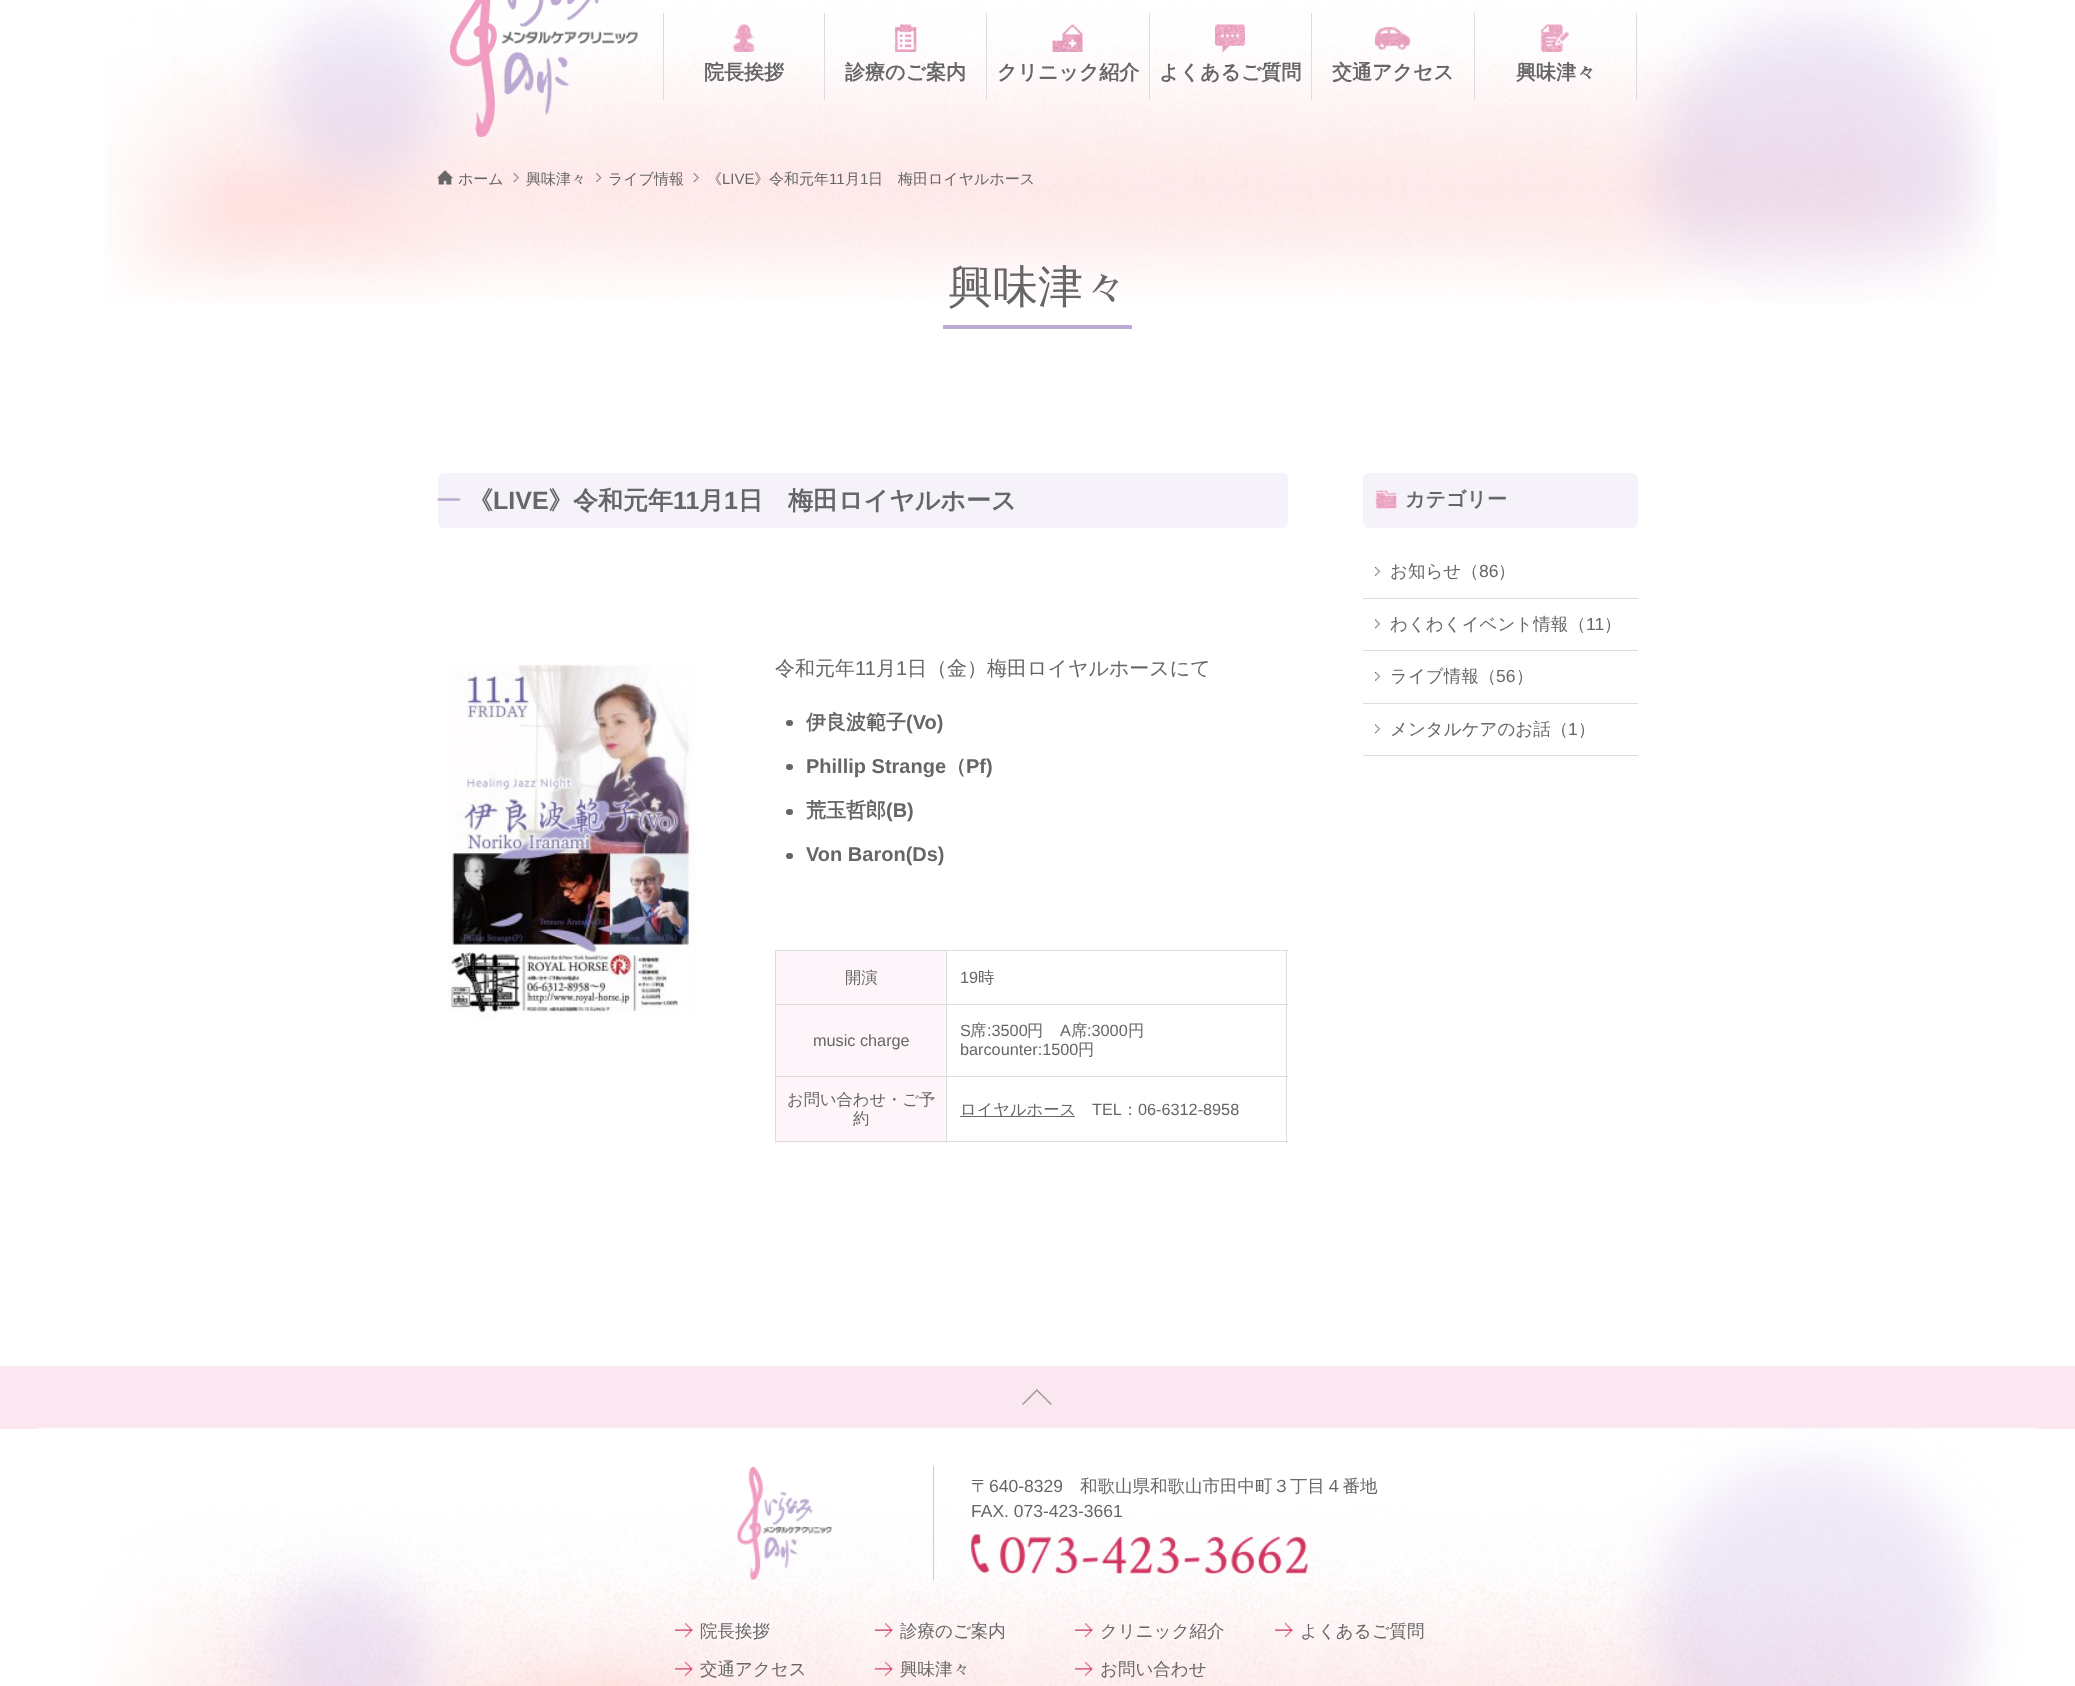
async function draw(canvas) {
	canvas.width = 2075;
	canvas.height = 1686;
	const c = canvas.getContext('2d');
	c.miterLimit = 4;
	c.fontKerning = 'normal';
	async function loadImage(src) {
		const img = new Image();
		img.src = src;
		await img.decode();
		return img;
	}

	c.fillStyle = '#fff';
	c.fillRect(0, 0, 2075, 1686);
	c.drawImage(await loadImage('img1.png'), 105, 0, 1892, 303);
	c.drawImage(await loadImage('img2.png'), 450, 0, 188, 137);
	c.fillStyle = '#ddd';
	c.fillRect(824, 13, 1, 87);
	c.fillRect(663, 13, 1, 87);
	c.drawImage(await loadImage('img3.png'), 732, 24, 23, 28);
	c.font = 'bold 20px WenQuanYi Zen Hei';
	c.fillStyle = '#666';
	c.fillText('院長挨拶', 704, 79);
	c.fillStyle = '#ddd';
	c.fillRect(986, 13, 1, 87);
	c.drawImage(await loadImage('img4.png'), 894, 24, 23, 28);
	c.fillStyle = '#666';
	c.fillText('診療のご案内', 845, 79);
	c.fillStyle = '#ddd';
	c.fillRect(1149, 13, 1, 87);
	c.drawImage(await loadImage('img5.png'), 1052, 24, 31, 28);
	c.fillStyle = '#666';
	c.fillText('クリニック紹介', 997, 79);
	c.fillStyle = '#ddd';
	c.fillRect(1311, 13, 1, 87);
	c.drawImage(await loadImage('img6.png'), 1215, 24, 30, 28);
	c.fillStyle = '#666';
	c.fillText('よくあるご質問', 1159, 79);
	c.fillStyle = '#ddd';
	c.fillRect(1474, 13, 1, 87);
	c.drawImage(await loadImage('img7.png'), 1375, 26, 35, 24);
	c.fillStyle = '#666';
	c.fillText('交通アクセス', 1332, 79);
	c.fillStyle = '#ddd';
	c.fillRect(1636, 13, 1, 87);
	c.drawImage(await loadImage('img8.png'), 1540, 24, 30, 28);
	c.fillStyle = '#666';
	c.fillText('興味津々', 1516, 79);
	c.drawImage(await loadImage('img9.png'), 437, 170, 16, 15);
	c.font = '500 15px WenQuanYi Zen Hei';
	c.fillText('ホーム', 458, 184);
	c.drawImage(await loadImage('img10.png'), 513, 173, 6, 9);
	c.fillText('興味津々', 526, 184);
	c.drawImage(await loadImage('img11.png'), 596, 173, 6, 9);
	c.fillText('ライブ情報', 608, 184);
	c.drawImage(await loadImage('img12.png'), 693, 173, 6, 9);
	c.fillText('《', 707, 184);
	c.font = '15px Liberation Sans';
	c.fillText('LIVE', 722, 184);
	c.font = '500 15px WenQuanYi Zen Hei';
	c.fillText('》令和元年', 754, 184);
	c.font = '15px Liberation Sans';
	c.fillText('11', 829, 184);
	c.font = '500 15px WenQuanYi Zen Hei';
	c.fillText('月', 845, 184);
	c.font = '15px Liberation Sans';
	c.fillText('1', 860, 184);
	c.font = '500 15px WenQuanYi Zen Hei';
	c.fillText('日　梅田ロイヤルホース', 868, 184);
	c.fillStyle = '#baabd4';
	c.fillRect(943, 325, 189, 4);
	c.font = '500 45px WenQuanYi Zen Hei';
	c.fillStyle = '#666';
	c.fillText('興味津々', 948, 302);
	c.fillStyle = '#f5f2f9';
	c.beginPath();
	c.roundRect(438, 473, 850, 55, 6);
	c.fill();
	c.drawImage(await loadImage('img13.png'), 437, 498, 24, 3);
	c.font = 'bold 25px WenQuanYi Zen Hei';
	c.fillStyle = '#666';
	c.fillText('《', 468, 509);
	c.font = 'bold 25px Liberation Sans';
	c.fillText('LIVE', 493, 509);
	c.font = 'bold 25px WenQuanYi Zen Hei';
	c.fillText('》令和元年', 548, 509);
	c.font = 'bold 25px Liberation Sans';
	c.fillText('11', 673, 509);
	c.font = 'bold 25px WenQuanYi Zen Hei';
	c.fillText('月', 699, 509);
	c.font = 'bold 25px Liberation Sans';
	c.fillText('1', 724, 509);
	c.font = 'bold 25px WenQuanYi Zen Hei';
	c.fillText('日　梅田ロイヤルホース', 738, 509);
	c.drawImage(await loadImage('img14.png'), 447, 663, 250, 356);
	c.font = '500 20px WenQuanYi Zen Hei';
	c.fillText('令和元年', 775, 675);
	c.font = '20px Liberation Sans';
	c.fillText('11', 855, 675);
	c.font = '500 20px WenQuanYi Zen Hei';
	c.fillText('月', 876, 675);
	c.font = '20px Liberation Sans';
	c.fillText('1', 896, 675);
	c.font = '500 20px WenQuanYi Zen Hei';
	c.fillText('日（金）梅田ロイヤルホースにて', 907, 675);
	c.beginPath();
	c.roundRect(786, 720, 7, 6, 3);
	c.fill();
	c.font = 'bold 20px WenQuanYi Zen Hei';
	c.fillText('伊良波範子', 806, 729);
	c.font = 'bold 20px Liberation Sans';
	c.fillText('(Vo)', 906, 729);
	c.beginPath();
	c.roundRect(786, 764, 7, 6, 3);
	c.fill();
	c.fillText('Phillip Strange', 806, 773);
	c.font = 'bold 20px WenQuanYi Zen Hei';
	c.fillText('（', 946, 773);
	c.font = 'bold 20px Liberation Sans';
	c.fillText('Pf)', 966, 773);
	c.beginPath();
	c.roundRect(786, 809, 7, 6, 3);
	c.fill();
	c.font = 'bold 20px WenQuanYi Zen Hei';
	c.fillText('荒玉哲郎', 806, 817);
	c.font = 'bold 20px Liberation Sans';
	c.fillText('(B)', 886, 817);
	c.beginPath();
	c.roundRect(786, 853, 7, 6, 3);
	c.fill();
	c.fillText('Von Baron(Ds)', 806, 861);
	for (const [x, y, w, h, color] of [
		[776, 951, 170, 53, '#fdf5f9'],
		[946, 950, 342, 1, '#ddd'],
		[946, 1004, 342, 1, '#ddd'],
		[946, 1076, 342, 1, '#ddd'],
		[1286, 1076, 1, 67, '#ddd'],
		[946, 1141, 342, 1, '#ddd'],
		[946, 1076, 1, 67, '#ddd'],
		[775, 1076, 173, 1, '#ddd'],
		[946, 1004, 1, 74, '#ddd'],
		[775, 1004, 173, 1, '#ddd'],
		[946, 950, 1, 55, '#ddd'],
		[775, 950, 173, 1, '#ddd'],
		[776, 1077, 170, 66, '#fdf5f9'],
		[775, 1141, 173, 1, '#ddd'],
		[775, 1076, 1, 67, '#ddd'],
		[775, 1004, 1, 74, '#ddd'],
		[775, 950, 1, 55, '#ddd'],
	]) {
		c.fillStyle = color;
		c.fillRect(x, y, w, h);
	}
	c.font = '500 16.25px WenQuanYi Zen Hei';
	c.fillStyle = '#666';
	c.fillText('開演', 845, 983);
	c.fillStyle = '#ddd';
	c.fillRect(1286, 1004, 1, 74);
	c.fillRect(1286, 950, 1, 55);
	c.font = '16.25px Liberation Sans';
	c.fillStyle = '#666';
	c.fillText('19', 960, 983);
	c.font = '500 16.25px WenQuanYi Zen Hei';
	c.fillText('時', 978, 983);
	c.fillStyle = '#fdf5f9';
	c.fillRect(776, 1005, 170, 71);
	c.font = '16.25px Liberation Sans';
	c.fillStyle = '#666';
	c.fillText('music charge', 813, 1046);
	c.fillText('S', 960, 1036);
	c.font = '500 16.25px WenQuanYi Zen Hei';
	c.fillText('席', 970, 1036);
	c.font = '16.25px Liberation Sans';
	c.fillText(':3500', 987, 1036);
	c.font = '500 16.25px WenQuanYi Zen Hei';
	c.fillText('円', 1027, 1036);
	c.font = '16.25px Liberation Sans';
	c.fillText('A', 1060, 1036);
	c.font = '500 16.25px WenQuanYi Zen Hei';
	c.fillText('席', 1071, 1036);
	c.font = '16.25px Liberation Sans';
	c.fillText(':3000', 1087, 1036);
	c.font = '500 16.25px WenQuanYi Zen Hei';
	c.fillText('円', 1128, 1036);
	c.font = '16.25px Liberation Sans';
	c.fillText('barcounter:1500', 960, 1055);
	c.font = '500 16.25px WenQuanYi Zen Hei';
	for (const [text, x, y] of [
		['円', 1078, 1055],
		['お問い合わせ・ご予', 787, 1105],
		['約', 853, 1124],
	]) {
		c.fillText(text, x, y);
	}
	c.fillRect(960, 1116, 115, 1);
	c.fillText('ロイヤルホース', 960, 1115);
	c.font = '16.25px Liberation Sans';
	c.fillText('TEL', 1092, 1115);
	c.font = '500 16.25px WenQuanYi Zen Hei';
	c.fillText('：', 1122, 1115);
	c.font = '16.25px Liberation Sans';
	c.fillText('06-6312-8958', 1138, 1115);
	c.fillStyle = '#f5f2f9';
	c.beginPath();
	c.roundRect(1363, 473, 275, 55, 6);
	c.fill();
	c.drawImage(await loadImage('img15.png'), 1375, 490, 22, 19);
	c.font = 'bold 20px WenQuanYi Zen Hei';
	c.fillStyle = '#666';
	c.fillText('カテゴリー', 1405, 506);
	c.drawImage(await loadImage('img16.png'), 1375, 567, 5, 9);
	c.fillStyle = '#ddd';
	c.fillRect(1363, 598, 275, 1);
	c.font = '500 17.5px WenQuanYi Zen Hei';
	c.fillStyle = '#666';
	c.fillText('お知らせ（', 1390, 577);
	c.font = '17.5px Liberation Sans';
	c.fillText('86', 1479, 577);
	c.font = '500 17.5px WenQuanYi Zen Hei';
	c.fillText('）', 1498, 577);
	c.drawImage(await loadImage('img17.png'), 1375, 619, 5, 10);
	c.fillStyle = '#ddd';
	c.fillRect(1363, 650, 275, 1);
	c.fillStyle = '#666';
	c.fillText('わくわくイベント情報（', 1390, 630);
	c.font = '17.5px Liberation Sans';
	c.fillText('11', 1586, 630);
	c.font = '500 17.5px WenQuanYi Zen Hei';
	c.fillText('）', 1604, 630);
	c.drawImage(await loadImage('img16.png'), 1375, 672, 5, 9);
	c.fillStyle = '#ddd';
	c.fillRect(1363, 703, 275, 1);
	c.fillStyle = '#666';
	c.fillText('ライブ情報（', 1390, 682);
	c.font = '17.5px Liberation Sans';
	c.fillText('56', 1496, 682);
	c.font = '500 17.5px WenQuanYi Zen Hei';
	c.fillText('）', 1516, 682);
	c.drawImage(await loadImage('img17.png'), 1375, 724, 5, 10);
	c.fillStyle = '#ddd';
	c.fillRect(1363, 755, 275, 1);
	c.fillStyle = '#666';
	c.fillText('メンタルケアのお話（', 1390, 735);
	c.font = '17.5px Liberation Sans';
	c.fillText('1', 1568, 735);
	c.font = '500 17.5px WenQuanYi Zen Hei';
	c.fillText('）', 1578, 735);
	c.fillStyle = '#fae7f0';
	c.fillRect(0, 1366, 2075, 63);
	c.drawImage(await loadImage('img18.png'), 1022, 1389, 30, 16);
	c.drawImage(await loadImage('img19.png'), 37, 1428, 2001, 258);
	c.drawImage(await loadImage('img20.png'), 737, 1467, 96, 113);
	c.fillStyle = '#ccc';
	c.fillRect(933, 1466, 1, 114);
	c.fillStyle = '#666';
	c.fillText('〒', 971, 1492);
	c.font = '17.5px Liberation Sans';
	c.fillText('640-8329', 989, 1492);
	c.font = '500 17.5px WenQuanYi Zen Hei';
	c.fillText('和歌山県和歌山市田中町３丁目４番地', 1080, 1492);
	c.font = '17.5px Liberation Sans';
	c.fillText('FAX. 073-423-3661', 971, 1517);
	c.drawImage(await loadImage('img21.png'), 971, 1534, 337, 40);
	c.drawImage(await loadImage('img22.png'), 675, 1623, 18, 15);
	c.font = '500 17.5px WenQuanYi Zen Hei';
	c.fillText('院長挨拶', 700, 1637);
	c.drawImage(await loadImage('img23.png'), 875, 1623, 18, 15);
	c.fillText('診療のご案内', 900, 1637);
	c.drawImage(await loadImage('img24.png'), 1075, 1623, 18, 15);
	c.fillText('クリニック紹介', 1100, 1637);
	c.drawImage(await loadImage('img25.png'), 1275, 1623, 18, 15);
	c.fillText('よくあるご質問', 1300, 1637);
	c.drawImage(await loadImage('img26.png'), 675, 1661, 18, 15);
	c.fillText('交通アクセス', 700, 1675);
	c.drawImage(await loadImage('img27.png'), 875, 1661, 18, 15);
	c.fillText('興味津々', 900, 1675);
	c.drawImage(await loadImage('img28.png'), 1075, 1661, 18, 15);
	c.fillText('お問い合わせ', 1100, 1675);
}

draw(document.querySelector('canvas'));
